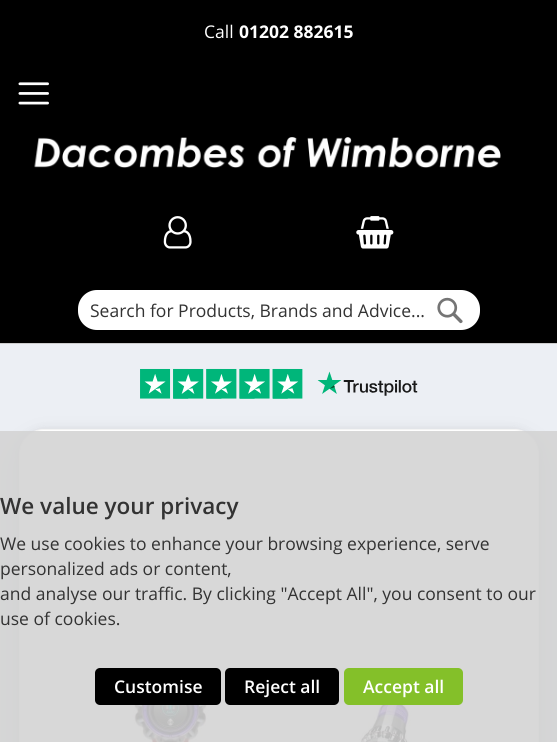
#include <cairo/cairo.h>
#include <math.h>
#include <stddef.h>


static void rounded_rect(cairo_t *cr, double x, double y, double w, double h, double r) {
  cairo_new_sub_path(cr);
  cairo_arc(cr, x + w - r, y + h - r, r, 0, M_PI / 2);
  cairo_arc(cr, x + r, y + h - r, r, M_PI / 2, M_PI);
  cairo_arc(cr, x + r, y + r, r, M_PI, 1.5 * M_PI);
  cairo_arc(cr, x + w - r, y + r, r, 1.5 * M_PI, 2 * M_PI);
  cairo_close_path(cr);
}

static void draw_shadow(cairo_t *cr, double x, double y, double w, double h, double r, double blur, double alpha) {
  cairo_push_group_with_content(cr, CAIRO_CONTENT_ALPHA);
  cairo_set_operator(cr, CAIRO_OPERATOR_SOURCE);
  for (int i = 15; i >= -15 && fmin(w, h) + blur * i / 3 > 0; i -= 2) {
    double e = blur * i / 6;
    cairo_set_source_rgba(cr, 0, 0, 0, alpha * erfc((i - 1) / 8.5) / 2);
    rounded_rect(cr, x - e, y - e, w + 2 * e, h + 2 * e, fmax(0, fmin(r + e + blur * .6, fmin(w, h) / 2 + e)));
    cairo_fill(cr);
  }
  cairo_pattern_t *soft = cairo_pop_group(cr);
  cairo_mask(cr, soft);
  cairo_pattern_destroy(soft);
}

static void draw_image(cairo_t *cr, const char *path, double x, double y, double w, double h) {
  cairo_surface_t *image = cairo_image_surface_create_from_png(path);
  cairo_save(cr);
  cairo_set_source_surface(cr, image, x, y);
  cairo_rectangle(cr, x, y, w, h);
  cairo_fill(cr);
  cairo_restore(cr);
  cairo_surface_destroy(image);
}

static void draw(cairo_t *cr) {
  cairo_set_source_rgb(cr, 236 / 255.0, 239 / 255.0, 244 / 255.0);
  cairo_paint(cr);
  cairo_set_source_rgb(cr, 0, 0, 0);
  cairo_rectangle(cr, 0, 0, 557, 343);
  cairo_fill(cr);
  cairo_set_source_rgb(cr, 204 / 255.0, 204 / 255.0, 204 / 255.0);
  cairo_rectangle(cr, 0, 343, 557, 1);
  cairo_fill(cr);
  draw_image(cr, "images/1.png", 18, 82, 31, 23);
  draw_image(cr, "images/2.png", 34, 137, 467, 31);
  draw_image(cr, "images/3.png", 163, 216, 29, 33);
  draw_image(cr, "images/4.png", 356, 216, 38, 33);
  cairo_set_source_rgb(cr, 1, 1, 1);
  rounded_rect(cr, 78, 290, 402, 40, 19);
  cairo_fill(cr);
  draw_image(cr, "images/5.png", 437, 297, 26, 27);
  cairo_set_source_rgb(cr, 0, 0, 0);
  draw_shadow(cr, 19, 444, 520, 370, 25, 15.5, 0.1);
  draw_image(cr, "images/6.png", 140, 368, 278, 31);
  draw_shadow(cr, 19, 431, 520, 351, 25, 5, 0.1);
  cairo_set_source_rgb(cr, 1, 1, 1);
  rounded_rect(cr, 19.5, 429.5, 519, 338, 24.5);
  cairo_fill_preserve(cr);
  cairo_set_source_rgb(cr, 244 / 255.0, 244 / 255.0, 244 / 255.0);
  cairo_set_line_width(cr, 1);
  cairo_stroke(cr);
  draw_image(cr, "images/7.png", 132, 671, 298, 71);
  cairo_set_source_rgba(cr, 211 / 255.0, 211 / 255.0, 211 / 255.0, 0.88);
  cairo_rectangle(cr, 0, 431, 557, 311);
  cairo_fill(cr);
  cairo_set_source_rgb(cr, 0, 0, 0);
  rounded_rect(cr, 95, 668, 126, 37, 5);
  cairo_fill(cr);
  rounded_rect(cr, 225, 668, 114, 37, 5);
  cairo_fill(cr);
  cairo_set_source_rgb(cr, 132 / 255.0, 192 / 255.0, 41 / 255.0);
  rounded_rect(cr, 344, 668, 119, 37, 5);
  cairo_fill(cr);
  cairo_select_font_face(cr, "Open Sans", CAIRO_FONT_SLANT_NORMAL, CAIRO_FONT_WEIGHT_NORMAL);
  cairo_set_font_size(cr, 17.5);
  cairo_set_source_rgb(cr, 1, 1, 1);
  cairo_move_to(cr, 204, 38);
  cairo_show_text(cr, "Call");
  cairo_select_font_face(cr, "Open Sans", CAIRO_FONT_SLANT_NORMAL, CAIRO_FONT_WEIGHT_BOLD);
  cairo_move_to(cr, 239, 38);
  cairo_show_text(cr, "01202 882615");
  cairo_select_font_face(cr, "Open Sans", CAIRO_FONT_SLANT_NORMAL, CAIRO_FONT_WEIGHT_NORMAL);
  cairo_set_source_rgb(cr, 51 / 255.0, 51 / 255.0, 51 / 255.0);
  cairo_move_to(cr, 90, 317);
  cairo_show_text(cr, "Search for Products, Brands and Advice...");
  cairo_select_font_face(cr, "Open Sans SemiBold", CAIRO_FONT_SLANT_NORMAL, CAIRO_FONT_WEIGHT_NORMAL);
  cairo_set_font_size(cr, 22.5);
  cairo_move_to(cr, 0, 514);
  cairo_show_text(cr, "We value your privacy");
  cairo_select_font_face(cr, "Open Sans", CAIRO_FONT_SLANT_NORMAL, CAIRO_FONT_WEIGHT_NORMAL);
  cairo_set_font_size(cr, 17.5);
  cairo_move_to(cr, 0, 550);
  cairo_show_text(cr, "We use cookies to enhance your browsing experience, serve");
  cairo_move_to(cr, 0, 575);
  cairo_show_text(cr, "personalized ads or content,");
  cairo_move_to(cr, 0, 600);
  cairo_show_text(cr, "and analyse our traffic. By clicking \"Accept All\", you consent to our");
  cairo_move_to(cr, 0, 625);
  cairo_show_text(cr, "use of cookies.");
  cairo_select_font_face(cr, "Open Sans SemiBold", CAIRO_FONT_SLANT_NORMAL, CAIRO_FONT_WEIGHT_NORMAL);
  cairo_set_source_rgb(cr, 1, 1, 1);
  cairo_move_to(cr, 114, 693);
  cairo_show_text(cr, "Customise");
  cairo_move_to(cr, 244, 693);
  cairo_show_text(cr, "Reject all");
  cairo_move_to(cr, 363, 693);
  cairo_show_text(cr, "Accept all");
}

int main(void) {
  cairo_surface_t *surface = cairo_image_surface_create(CAIRO_FORMAT_RGB24, 557, 742);
  cairo_t *cr = cairo_create(surface);
  cairo_font_options_t *options = cairo_font_options_create();
  cairo_font_options_set_hint_metrics(options, CAIRO_HINT_METRICS_OFF);
  cairo_font_options_set_hint_style(options, CAIRO_HINT_STYLE_NONE);
  cairo_set_font_options(cr, options);
  cairo_set_miter_limit(cr, 4);
  draw(cr);
  cairo_surface_write_to_png(surface, "out.png");
  cairo_font_options_destroy(options);
  cairo_destroy(cr);
  cairo_surface_destroy(surface);
  return 0;
}
